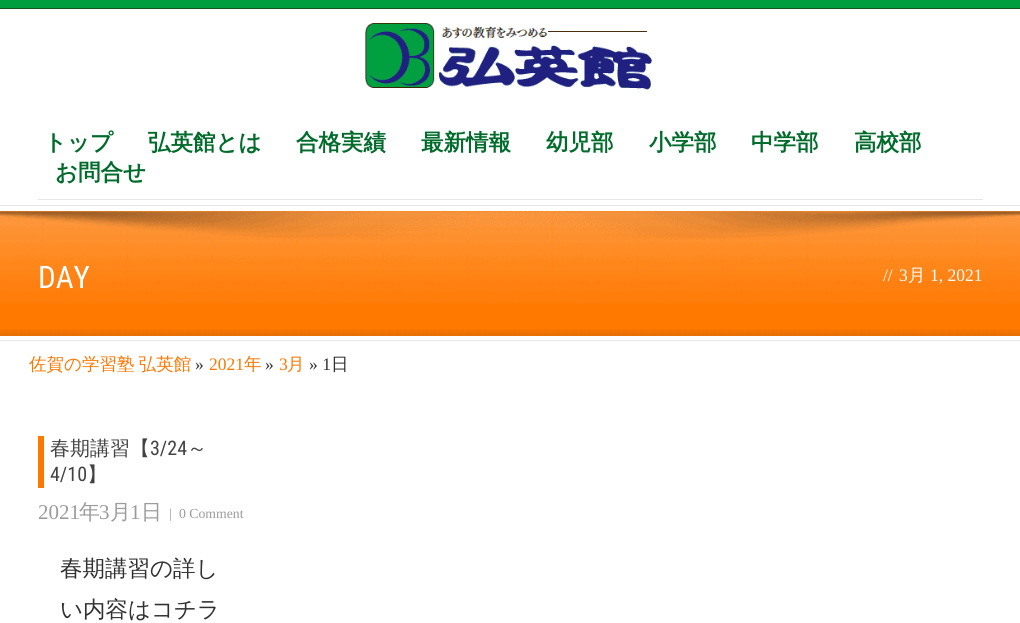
#include <cairo/cairo.h>
#include <math.h>
#include <stddef.h>


static void draw_spaced(cairo_t *cr, double x, double y, const char *s, double letter, double word) {
  cairo_move_to(cr, x, y);
  while (*s) {
    char ch[5] = {0};
    int n = 0;
    do ch[n++] = *s++; while ((*s & 0xC0) == 0x80);
    cairo_show_text(cr, ch);
    cairo_rel_move_to(cr, letter + word * (*ch == ' '), 0);
  }
}

static void draw_image(cairo_t *cr, const char *path, double x, double y, double w, double h) {
  cairo_surface_t *image = cairo_image_surface_create_from_png(path);
  cairo_save(cr);
  cairo_set_source_surface(cr, image, x, y);
  cairo_rectangle(cr, x, y, w, h);
  cairo_fill(cr);
  cairo_restore(cr);
  cairo_surface_destroy(image);
}

static void draw(cairo_t *cr) {
  cairo_set_source_rgb(cr, 1, 1, 1);
  cairo_paint(cr);
  cairo_set_source_rgb(cr, 0, 158 / 255.0, 63 / 255.0);
  cairo_rectangle(cr, 0, 0, 1020, 8);
  cairo_fill(cr);
  cairo_set_source_rgb(cr, 27 / 255.0, 82 / 255.0, 29 / 255.0);
  cairo_rectangle(cr, 0, 8, 1020, 1);
  cairo_fill(cr);
  draw_image(cr, "images/1.png", 365, 23, 287, 67);
  cairo_set_source_rgb(cr, 230 / 255.0, 230 / 255.0, 230 / 255.0);
  cairo_rectangle(cr, 38, 199, 945, 1);
  cairo_fill(cr);
  cairo_rectangle(cr, 0, 205, 1020, 1);
  cairo_fill(cr);
  cairo_rectangle(cr, 0, 340, 1020, 1);
  cairo_fill(cr);
  cairo_set_source_rgb(cr, 1, 120 / 255.0, 0);
  cairo_rectangle(cr, 0, 211, 1020, 125);
  cairo_fill(cr);
  draw_image(cr, "images/2.png", 0, 211, 1020, 93);
  draw_image(cr, "images/3.png", 0, 211, 1020, 29);
  draw_image(cr, "images/4.png", 0, 329, 1020, 7);
  cairo_rectangle(cr, 38, 436, 6, 52);
  cairo_fill(cr);
  cairo_select_font_face(cr, "WenQuanYi Zen Hei", CAIRO_FONT_SLANT_NORMAL, CAIRO_FONT_WEIGHT_BOLD);
  cairo_set_font_size(cr, 22.5);
  cairo_set_source_rgb(cr, 0, 107 / 255.0, 43 / 255.0);
  cairo_move_to(cr, 44, 150);
  cairo_show_text(cr, "トップ");
  cairo_move_to(cr, 148, 150);
  cairo_show_text(cr, "弘英館とは");
  cairo_move_to(cr, 296, 150);
  cairo_show_text(cr, "合格実績");
  cairo_move_to(cr, 421, 150);
  cairo_show_text(cr, "最新情報");
  cairo_move_to(cr, 546, 150);
  cairo_show_text(cr, "幼児部");
  cairo_move_to(cr, 649, 150);
  cairo_show_text(cr, "小学部");
  cairo_move_to(cr, 751, 150);
  cairo_show_text(cr, "中学部");
  cairo_move_to(cr, 854, 150);
  cairo_show_text(cr, "高校部");
  cairo_move_to(cr, 55, 180);
  cairo_show_text(cr, "お問合せ");
  cairo_select_font_face(cr, "Roboto Condensed", CAIRO_FONT_SLANT_NORMAL, CAIRO_FONT_WEIGHT_NORMAL);
  cairo_set_font_size(cr, 31);
  cairo_set_source_rgb(cr, 1, 1, 1);
  cairo_move_to(cr, 38, 288);
  cairo_show_text(cr, "DAY");
  cairo_select_font_face(cr, "Liberation Serif", CAIRO_FONT_SLANT_NORMAL, CAIRO_FONT_WEIGHT_NORMAL);
  cairo_set_font_size(cr, 17.5);
  cairo_move_to(cr, 883, 281);
  cairo_show_text(cr, "//");
  cairo_move_to(cr, 899, 281);
  cairo_show_text(cr, "3");
  cairo_select_font_face(cr, "WenQuanYi Zen Hei Medium", CAIRO_FONT_SLANT_NORMAL, CAIRO_FONT_WEIGHT_NORMAL);
  cairo_move_to(cr, 908, 281);
  cairo_show_text(cr, "月");
  cairo_select_font_face(cr, "Liberation Serif", CAIRO_FONT_SLANT_NORMAL, CAIRO_FONT_WEIGHT_NORMAL);
  cairo_move_to(cr, 930, 281);
  cairo_show_text(cr, "1, 2021");
  cairo_select_font_face(cr, "WenQuanYi Zen Hei Medium", CAIRO_FONT_SLANT_NORMAL, CAIRO_FONT_WEIGHT_NORMAL);
  cairo_set_source_rgb(cr, 1, 119 / 255.0, 0);
  draw_spaced(cr, 29, 370, "佐賀の学習塾 弘英館", 0, -1);
  cairo_select_font_face(cr, "Liberation Serif", CAIRO_FONT_SLANT_NORMAL, CAIRO_FONT_WEIGHT_NORMAL);
  cairo_set_source_rgb(cr, 48 / 255.0, 48 / 255.0, 48 / 255.0);
  cairo_move_to(cr, 195, 370);
  cairo_show_text(cr, "»");
  cairo_set_source_rgb(cr, 1, 119 / 255.0, 0);
  cairo_move_to(cr, 209, 370);
  cairo_show_text(cr, "2021");
  cairo_select_font_face(cr, "WenQuanYi Zen Hei Medium", CAIRO_FONT_SLANT_NORMAL, CAIRO_FONT_WEIGHT_NORMAL);
  cairo_move_to(cr, 244, 370);
  cairo_show_text(cr, "年");
  cairo_select_font_face(cr, "Liberation Serif", CAIRO_FONT_SLANT_NORMAL, CAIRO_FONT_WEIGHT_NORMAL);
  cairo_set_source_rgb(cr, 48 / 255.0, 48 / 255.0, 48 / 255.0);
  cairo_move_to(cr, 265, 370);
  cairo_show_text(cr, "»");
  cairo_set_source_rgb(cr, 1, 119 / 255.0, 0);
  cairo_move_to(cr, 279, 370);
  cairo_show_text(cr, "3");
  cairo_select_font_face(cr, "WenQuanYi Zen Hei Medium", CAIRO_FONT_SLANT_NORMAL, CAIRO_FONT_WEIGHT_NORMAL);
  cairo_move_to(cr, 287, 370);
  cairo_show_text(cr, "月");
  cairo_select_font_face(cr, "Liberation Serif", CAIRO_FONT_SLANT_NORMAL, CAIRO_FONT_WEIGHT_NORMAL);
  cairo_set_source_rgb(cr, 48 / 255.0, 48 / 255.0, 48 / 255.0);
  cairo_move_to(cr, 309, 370);
  cairo_show_text(cr, "» 1");
  cairo_select_font_face(cr, "WenQuanYi Zen Hei Medium", CAIRO_FONT_SLANT_NORMAL, CAIRO_FONT_WEIGHT_NORMAL);
  cairo_move_to(cr, 331, 370);
  cairo_show_text(cr, "日");
  cairo_set_font_size(cr, 20);
  cairo_set_source_rgb(cr, 66 / 255.0, 66 / 255.0, 66 / 255.0);
  cairo_move_to(cr, 50, 455);
  cairo_show_text(cr, "春期講習【");
  cairo_select_font_face(cr, "Roboto Condensed", CAIRO_FONT_SLANT_NORMAL, CAIRO_FONT_WEIGHT_NORMAL);
  cairo_move_to(cr, 150, 455);
  cairo_show_text(cr, "3/24");
  cairo_select_font_face(cr, "WenQuanYi Zen Hei Medium", CAIRO_FONT_SLANT_NORMAL, CAIRO_FONT_WEIGHT_NORMAL);
  cairo_move_to(cr, 187, 455);
  cairo_show_text(cr, "～");
  cairo_select_font_face(cr, "Roboto Condensed", CAIRO_FONT_SLANT_NORMAL, CAIRO_FONT_WEIGHT_NORMAL);
  cairo_move_to(cr, 50, 481);
  cairo_show_text(cr, "4/10");
  cairo_select_font_face(cr, "WenQuanYi Zen Hei Medium", CAIRO_FONT_SLANT_NORMAL, CAIRO_FONT_WEIGHT_NORMAL);
  cairo_move_to(cr, 87, 481);
  cairo_show_text(cr, "】");
  cairo_select_font_face(cr, "Liberation Serif", CAIRO_FONT_SLANT_NORMAL, CAIRO_FONT_WEIGHT_NORMAL);
  cairo_set_font_size(cr, 21);
  cairo_set_source_rgb(cr, 155 / 255.0, 155 / 255.0, 155 / 255.0);
  cairo_move_to(cr, 38, 519);
  cairo_show_text(cr, "2021");
  cairo_select_font_face(cr, "WenQuanYi Zen Hei Medium", CAIRO_FONT_SLANT_NORMAL, CAIRO_FONT_WEIGHT_NORMAL);
  cairo_move_to(cr, 79, 519);
  cairo_show_text(cr, "年");
  cairo_select_font_face(cr, "Liberation Serif", CAIRO_FONT_SLANT_NORMAL, CAIRO_FONT_WEIGHT_NORMAL);
  cairo_move_to(cr, 99, 519);
  cairo_show_text(cr, "3");
  cairo_select_font_face(cr, "WenQuanYi Zen Hei Medium", CAIRO_FONT_SLANT_NORMAL, CAIRO_FONT_WEIGHT_NORMAL);
  cairo_move_to(cr, 110, 519);
  cairo_show_text(cr, "月");
  cairo_select_font_face(cr, "Liberation Serif", CAIRO_FONT_SLANT_NORMAL, CAIRO_FONT_WEIGHT_NORMAL);
  cairo_move_to(cr, 130, 519);
  cairo_show_text(cr, "1");
  cairo_select_font_face(cr, "WenQuanYi Zen Hei Medium", CAIRO_FONT_SLANT_NORMAL, CAIRO_FONT_WEIGHT_NORMAL);
  cairo_move_to(cr, 141, 519);
  cairo_show_text(cr, "日");
  cairo_select_font_face(cr, "Liberation Serif", CAIRO_FONT_SLANT_NORMAL, CAIRO_FONT_WEIGHT_NORMAL);
  cairo_set_font_size(cr, 13.75);
  cairo_move_to(cr, 169, 518);
  cairo_show_text(cr, "|");
  cairo_move_to(cr, 179, 518);
  cairo_show_text(cr, "0 Comment");
  cairo_select_font_face(cr, "WenQuanYi Zen Hei Medium", CAIRO_FONT_SLANT_NORMAL, CAIRO_FONT_WEIGHT_NORMAL);
  cairo_set_font_size(cr, 22.5);
  cairo_set_source_rgb(cr, 48 / 255.0, 48 / 255.0, 48 / 255.0);
  cairo_move_to(cr, 60, 576);
  cairo_show_text(cr, "春期講習の詳し");
  cairo_move_to(cr, 60, 617);
  cairo_show_text(cr, "い内容はコチラ");
}

int main(void) {
  cairo_surface_t *surface = cairo_image_surface_create(CAIRO_FORMAT_RGB24, 1020, 623);
  cairo_t *cr = cairo_create(surface);
  cairo_font_options_t *options = cairo_font_options_create();
  cairo_font_options_set_hint_metrics(options, CAIRO_HINT_METRICS_OFF);
  cairo_font_options_set_hint_style(options, CAIRO_HINT_STYLE_NONE);
  cairo_set_font_options(cr, options);
  cairo_set_miter_limit(cr, 4);
  draw(cr);
  cairo_surface_write_to_png(surface, "out.png");
  cairo_font_options_destroy(options);
  cairo_destroy(cr);
  cairo_surface_destroy(surface);
  return 0;
}
